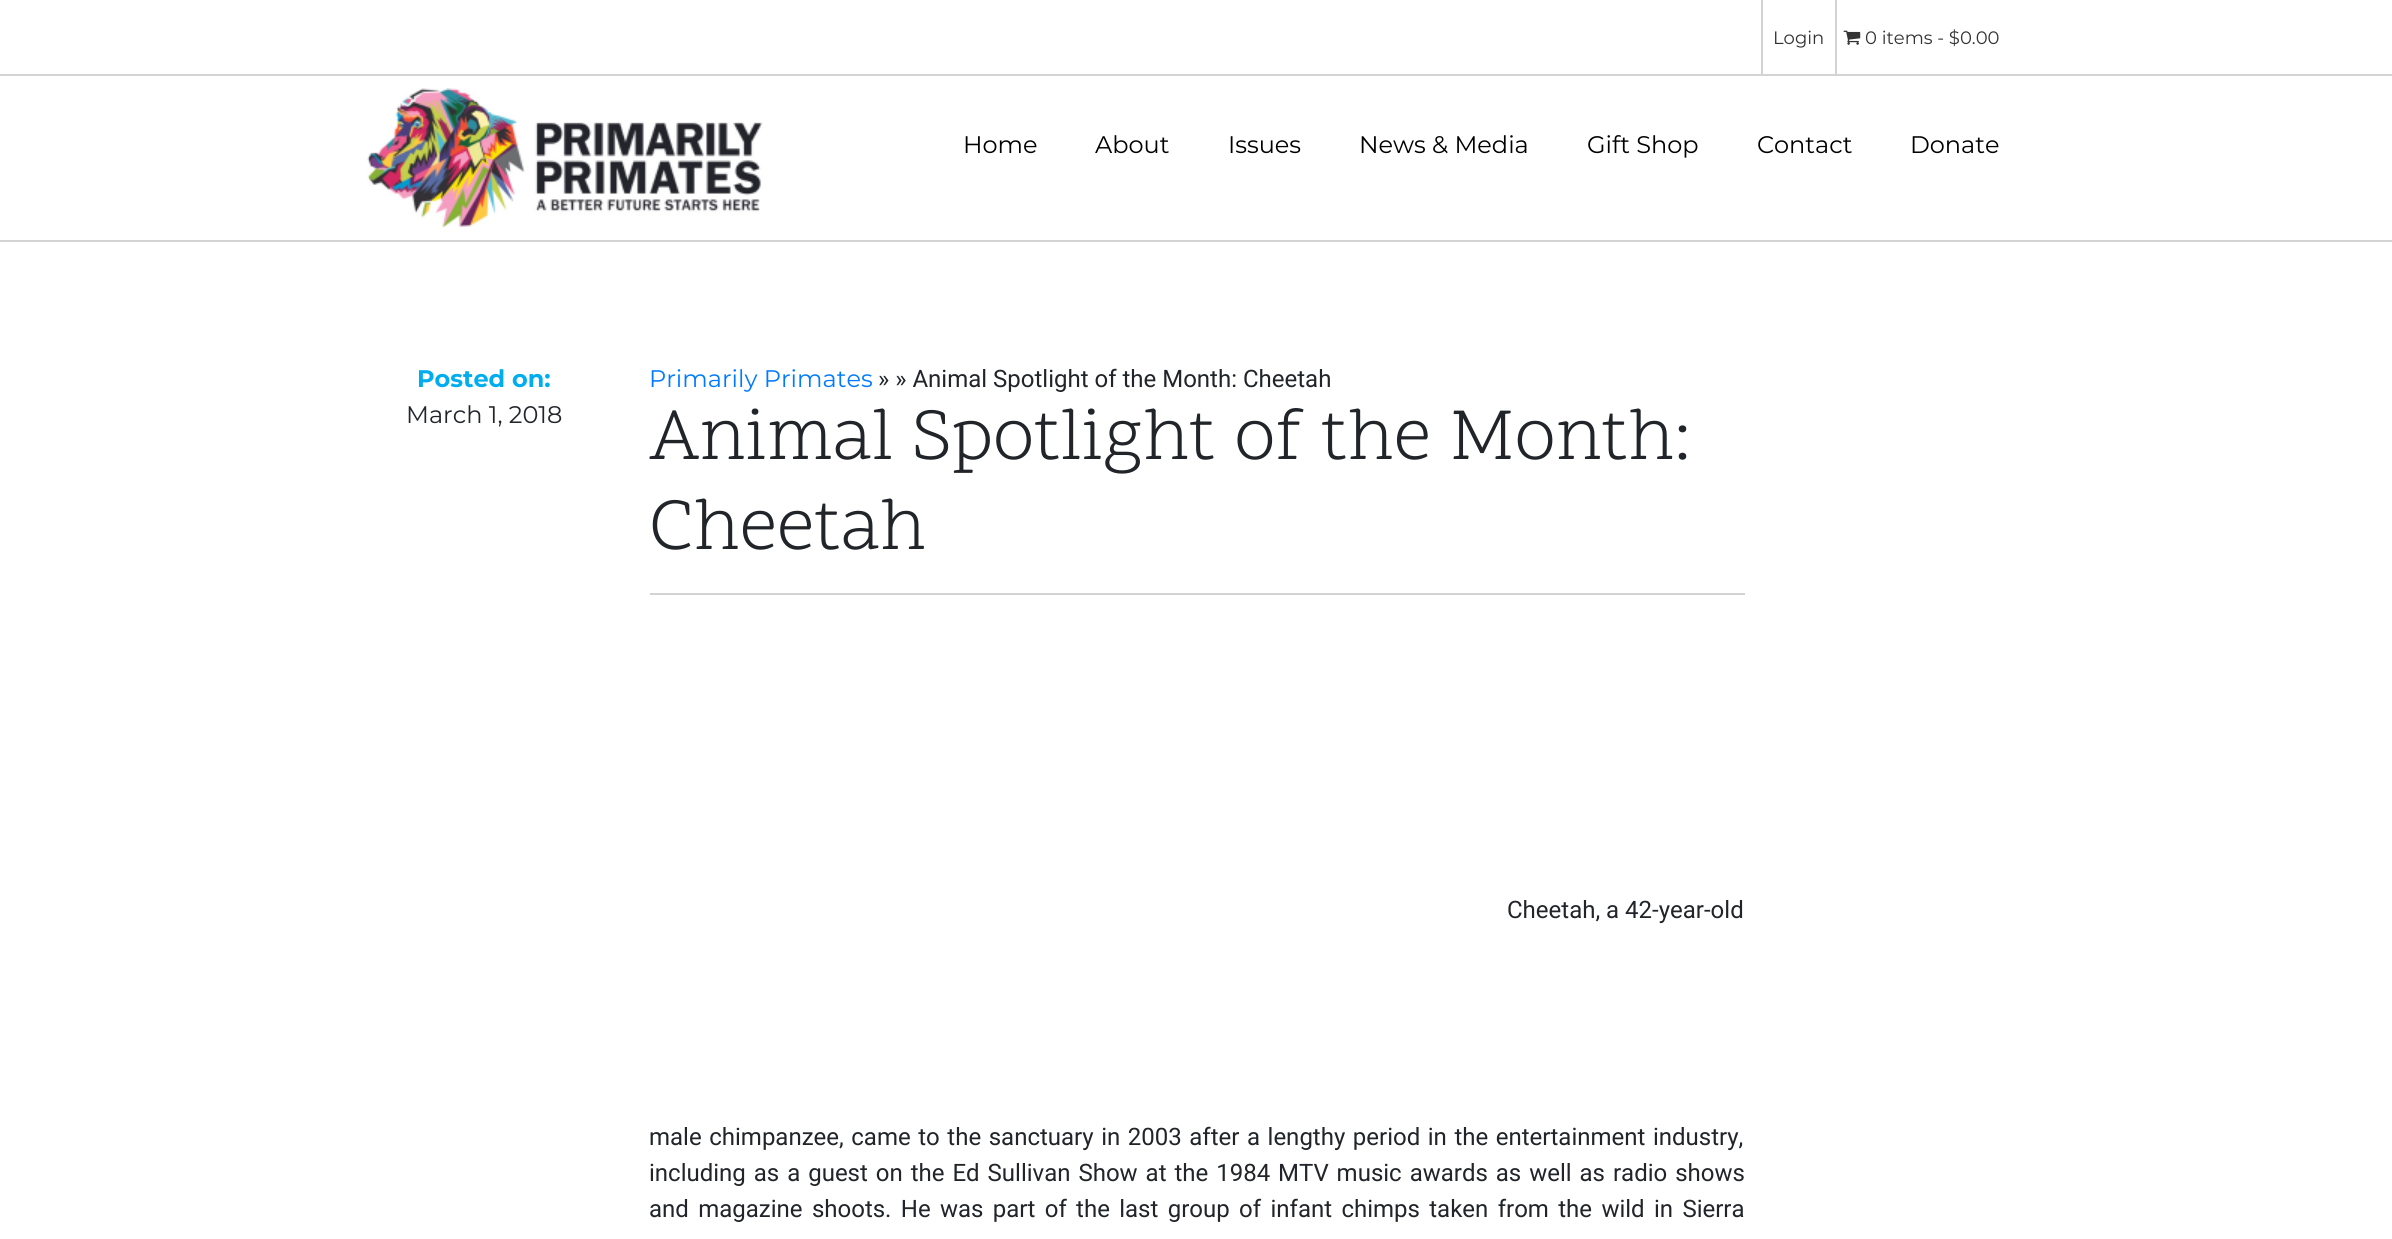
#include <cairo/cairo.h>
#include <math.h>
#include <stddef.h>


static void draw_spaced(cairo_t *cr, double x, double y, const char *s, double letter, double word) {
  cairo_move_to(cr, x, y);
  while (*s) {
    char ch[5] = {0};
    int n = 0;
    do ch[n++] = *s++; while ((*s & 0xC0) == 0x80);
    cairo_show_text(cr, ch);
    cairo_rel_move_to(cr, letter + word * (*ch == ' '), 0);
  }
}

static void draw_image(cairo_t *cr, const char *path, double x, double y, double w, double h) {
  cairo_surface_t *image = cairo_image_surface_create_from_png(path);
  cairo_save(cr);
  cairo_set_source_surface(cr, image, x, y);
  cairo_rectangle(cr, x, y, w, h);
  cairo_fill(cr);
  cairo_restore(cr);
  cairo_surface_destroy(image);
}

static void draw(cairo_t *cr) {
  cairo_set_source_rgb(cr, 1, 1, 1);
  cairo_paint(cr);
  cairo_set_source_rgb(cr, 211 / 255.0, 211 / 255.0, 211 / 255.0);
  cairo_rectangle(cr, 0, 240, 2392, 2);
  cairo_fill(cr);
  cairo_rectangle(cr, 0, 74, 2392, 2);
  cairo_fill(cr);
  cairo_rectangle(cr, 1761, 0, 2, 74);
  cairo_fill(cr);
  cairo_rectangle(cr, 1835, 0, 2, 74);
  cairo_fill(cr);
  draw_image(cr, "images/1.png", 1843, 30, 18, 15);
  draw_image(cr, "images/2.png", 367, 88, 396, 140);
  cairo_rectangle(cr, 650, 593, 1095, 2);
  cairo_fill(cr);
  cairo_select_font_face(cr, "Montserrat", CAIRO_FONT_SLANT_NORMAL, CAIRO_FONT_WEIGHT_NORMAL);
  cairo_set_font_size(cr, 18);
  cairo_set_source_rgb(cr, 51 / 255.0, 51 / 255.0, 51 / 255.0);
  cairo_move_to(cr, 1773, 44);
  cairo_show_text(cr, "Login");
  cairo_move_to(cr, 1865, 44);
  cairo_show_text(cr, "0 items - $0.00");
  cairo_set_font_size(cr, 24);
  cairo_set_source_rgb(cr, 0, 0, 0);
  cairo_move_to(cr, 963, 153);
  cairo_show_text(cr, "Home");
  cairo_move_to(cr, 1095, 153);
  cairo_show_text(cr, "About");
  cairo_move_to(cr, 1228, 153);
  cairo_show_text(cr, "Issues");
  cairo_move_to(cr, 1359, 153);
  cairo_show_text(cr, "News & Media");
  cairo_move_to(cr, 1587, 153);
  cairo_show_text(cr, "Gift Shop");
  cairo_move_to(cr, 1757, 153);
  cairo_show_text(cr, "Contact");
  cairo_move_to(cr, 1910, 153);
  cairo_show_text(cr, "Donate");
  cairo_select_font_face(cr, "Montserrat", CAIRO_FONT_SLANT_NORMAL, CAIRO_FONT_WEIGHT_BOLD);
  cairo_set_source_rgb(cr, 0, 173 / 255.0, 239 / 255.0);
  cairo_move_to(cr, 417, 387);
  cairo_show_text(cr, "Posted on:");
  cairo_select_font_face(cr, "Montserrat", CAIRO_FONT_SLANT_NORMAL, CAIRO_FONT_WEIGHT_NORMAL);
  cairo_set_source_rgb(cr, 33 / 255.0, 37 / 255.0, 41 / 255.0);
  cairo_move_to(cr, 406, 423);
  cairo_show_text(cr, "March 1, 2018");
  cairo_set_source_rgb(cr, 0, 123 / 255.0, 1);
  cairo_move_to(cr, 649, 387);
  cairo_show_text(cr, "Primarily Primates");
  cairo_select_font_face(cr, "Roboto", CAIRO_FONT_SLANT_NORMAL, CAIRO_FONT_WEIGHT_NORMAL);
  cairo_set_source_rgb(cr, 33 / 255.0, 37 / 255.0, 41 / 255.0);
  cairo_move_to(cr, 878, 387);
  cairo_show_text(cr, "» » Animal Spotlight of the Month: Cheetah");
  cairo_select_font_face(cr, "Scope One", CAIRO_FONT_SLANT_NORMAL, CAIRO_FONT_WEIGHT_NORMAL);
  cairo_set_font_size(cr, 75);
  cairo_move_to(cr, 649, 459);
  cairo_show_text(cr, "Animal Spotlight of the Month:");
  cairo_move_to(cr, 649, 549);
  cairo_show_text(cr, "Cheetah");
  cairo_select_font_face(cr, "Roboto", CAIRO_FONT_SLANT_NORMAL, CAIRO_FONT_WEIGHT_NORMAL);
  cairo_set_font_size(cr, 24);
  cairo_move_to(cr, 1507, 918);
  cairo_show_text(cr, "Cheetah, a 42-year-old");
  draw_spaced(cr, 649, 1145, "male chimpanzee, came to the sanctuary in 2003 after a lengthy period in the entertainment industry,", 0, 1.6);
  draw_spaced(cr, 649, 1181, "including as a guest on the Ed Sullivan Show at the 1984 MTV music awards as well as radio shows", 0, 2);
  draw_spaced(cr, 649, 1217, "and magazine shoots. He was part of the last group of infant chimps taken from the wild in Sierra", 0, 3.4);
}

int main(void) {
  cairo_surface_t *surface = cairo_image_surface_create(CAIRO_FORMAT_RGB24, 2392, 1239);
  cairo_t *cr = cairo_create(surface);
  cairo_font_options_t *options = cairo_font_options_create();
  cairo_font_options_set_hint_metrics(options, CAIRO_HINT_METRICS_OFF);
  cairo_font_options_set_hint_style(options, CAIRO_HINT_STYLE_NONE);
  cairo_set_font_options(cr, options);
  cairo_set_miter_limit(cr, 4);
  draw(cr);
  cairo_surface_write_to_png(surface, "out.png");
  cairo_font_options_destroy(options);
  cairo_destroy(cr);
  cairo_surface_destroy(surface);
  return 0;
}
